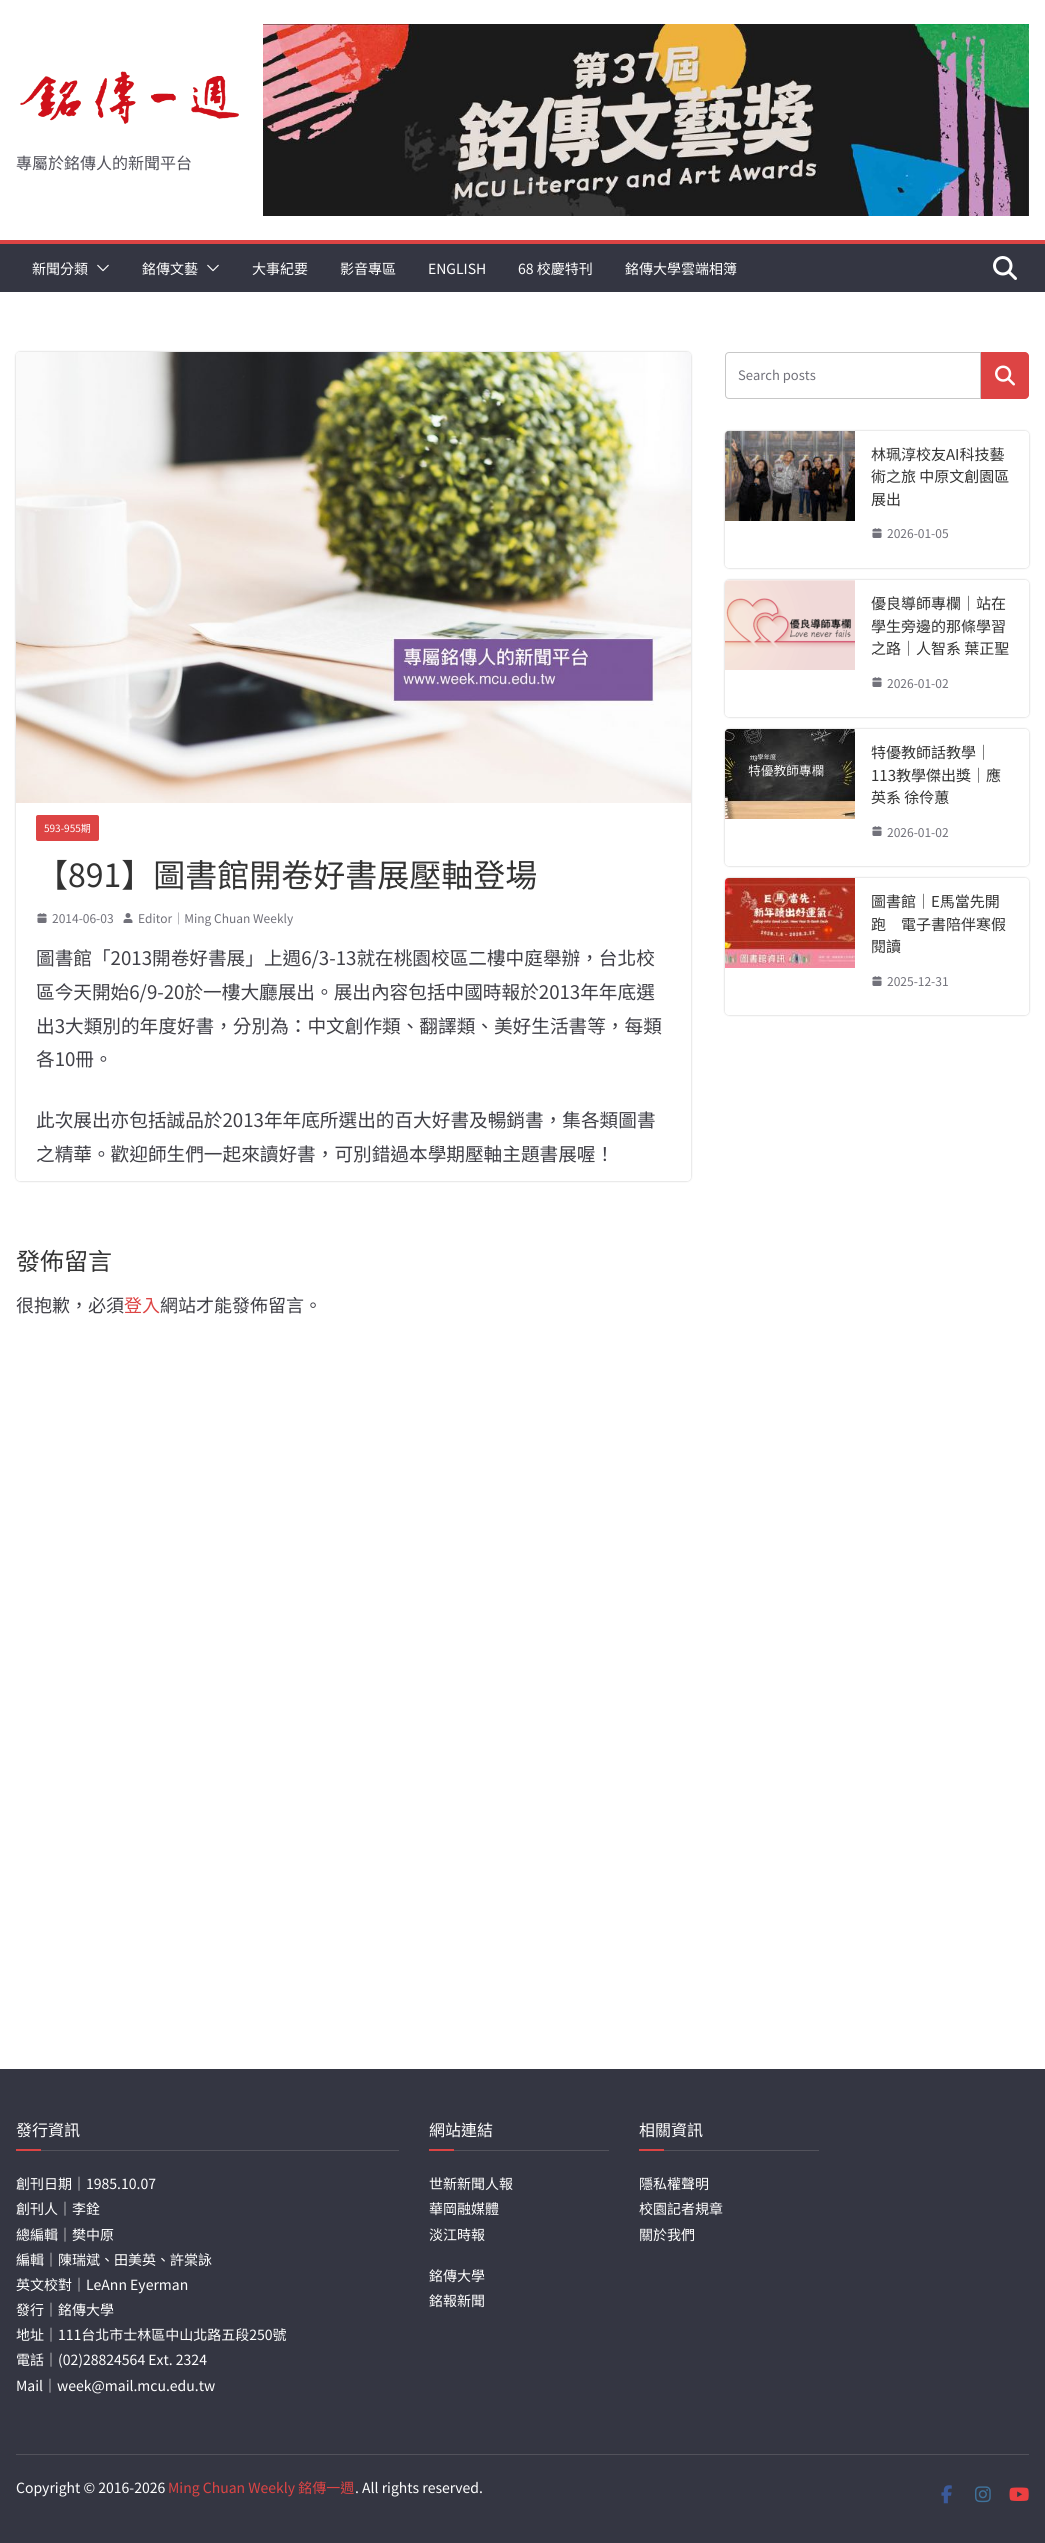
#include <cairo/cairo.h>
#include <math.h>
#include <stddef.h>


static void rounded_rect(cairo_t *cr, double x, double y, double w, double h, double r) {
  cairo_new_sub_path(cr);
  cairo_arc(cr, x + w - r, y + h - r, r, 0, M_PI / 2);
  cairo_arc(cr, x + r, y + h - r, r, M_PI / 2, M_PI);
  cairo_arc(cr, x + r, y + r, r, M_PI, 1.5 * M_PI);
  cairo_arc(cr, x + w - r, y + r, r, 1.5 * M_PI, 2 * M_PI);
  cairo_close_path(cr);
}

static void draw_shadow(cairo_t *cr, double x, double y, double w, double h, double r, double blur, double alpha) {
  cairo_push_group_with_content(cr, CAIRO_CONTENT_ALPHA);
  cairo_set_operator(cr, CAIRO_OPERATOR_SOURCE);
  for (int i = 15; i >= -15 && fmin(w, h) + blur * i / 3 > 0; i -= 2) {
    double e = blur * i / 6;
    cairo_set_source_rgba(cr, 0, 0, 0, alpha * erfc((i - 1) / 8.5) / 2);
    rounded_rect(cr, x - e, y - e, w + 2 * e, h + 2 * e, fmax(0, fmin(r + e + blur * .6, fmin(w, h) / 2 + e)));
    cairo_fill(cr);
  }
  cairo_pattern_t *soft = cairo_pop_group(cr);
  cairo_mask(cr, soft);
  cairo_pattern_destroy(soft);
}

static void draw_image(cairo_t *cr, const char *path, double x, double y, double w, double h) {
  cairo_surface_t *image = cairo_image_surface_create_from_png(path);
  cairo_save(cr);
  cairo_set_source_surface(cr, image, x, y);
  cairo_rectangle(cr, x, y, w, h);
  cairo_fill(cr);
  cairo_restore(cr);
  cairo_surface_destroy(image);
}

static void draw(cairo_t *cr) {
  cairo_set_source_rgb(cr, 1, 1, 1);
  cairo_paint(cr);
  draw_image(cr, "images/1.png", 20, 71, 219, 53);
  draw_image(cr, "images/2.png", 263, 24, 766, 192);
  cairo_set_source_rgb(cr, 52 / 255.0, 54 / 255.0, 66 / 255.0);
  cairo_rectangle(cr, 0, 244, 1045, 48);
  cairo_fill(cr);
  cairo_set_source_rgb(cr, 221 / 255.0, 68 / 255.0, 68 / 255.0);
  cairo_rectangle(cr, 0, 240, 1045, 4);
  cairo_fill(cr);
  draw_image(cr, "images/3.png", 97, 264, 12, 8);
  draw_image(cr, "images/3.png", 207, 264, 12, 8);
  draw_image(cr, "images/4.png", 993, 256, 24, 24);
  cairo_new_path(cr);
  cairo_move_to(cr, 729, 352.5);
  cairo_line_to(cr, 980.5, 352.5);
  cairo_line_to(cr, 980.5, 398.5);
  cairo_line_to(cr, 729, 398.5);
  cairo_curve_to(cr, 727, 398.5, 725.5, 397, 725.5, 395);
  cairo_line_to(cr, 725.5, 356);
  cairo_curve_to(cr, 725.5, 354, 727, 352.5, 729, 352.5);
  cairo_close_path(cr);
  cairo_set_source_rgb(cr, 199 / 255.0, 199 / 255.0, 199 / 255.0);
  cairo_set_line_width(cr, 1);
  cairo_stroke(cr);
  cairo_set_source_rgb(cr, 221 / 255.0, 68 / 255.0, 68 / 255.0);
  cairo_new_path(cr);
  cairo_move_to(cr, 981, 352);
  cairo_line_to(cr, 1025, 352);
  cairo_curve_to(cr, 1027, 352, 1029, 354, 1029, 356);
  cairo_line_to(cr, 1029, 395);
  cairo_curve_to(cr, 1029, 397, 1027, 399, 1025, 399);
  cairo_line_to(cr, 981, 399);
  cairo_close_path(cr);
  cairo_fill(cr);
  draw_image(cr, "images/5.png", 995, 365, 20, 21);
  cairo_save(cr);
  cairo_set_fill_rule(cr, CAIRO_FILL_RULE_EVEN_ODD);
  cairo_new_path(cr);
  cairo_move_to(cr, 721, 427);
  cairo_line_to(cr, 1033, 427);
  cairo_line_to(cr, 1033, 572);
  cairo_line_to(cr, 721, 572);
  cairo_close_path(cr);
  cairo_move_to(cr, 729, 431);
  cairo_line_to(cr, 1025, 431);
  cairo_curve_to(cr, 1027, 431, 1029, 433, 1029, 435);
  cairo_line_to(cr, 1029, 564);
  cairo_curve_to(cr, 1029, 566, 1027, 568, 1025, 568);
  cairo_line_to(cr, 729, 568);
  cairo_curve_to(cr, 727, 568, 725, 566, 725, 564);
  cairo_line_to(cr, 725, 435);
  cairo_curve_to(cr, 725, 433, 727, 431, 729, 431);
  cairo_close_path(cr);
  cairo_clip(cr);
  cairo_set_source_rgb(cr, 0, 0, 0);
  draw_shadow(cr, 725, 431, 304, 137, 4, 1, 0.24);
  cairo_restore(cr);
  draw_image(cr, "images/6.png", 725, 431, 130, 90);
  draw_image(cr, "images/7.png", 872, 528, 10, 10);
  cairo_save(cr);
  cairo_set_fill_rule(cr, CAIRO_FILL_RULE_EVEN_ODD);
  cairo_new_path(cr);
  cairo_move_to(cr, 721, 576);
  cairo_line_to(cr, 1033, 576);
  cairo_line_to(cr, 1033, 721);
  cairo_line_to(cr, 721, 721);
  cairo_close_path(cr);
  cairo_move_to(cr, 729, 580);
  cairo_line_to(cr, 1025, 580);
  cairo_curve_to(cr, 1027, 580, 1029, 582, 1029, 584);
  cairo_line_to(cr, 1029, 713);
  cairo_curve_to(cr, 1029, 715, 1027, 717, 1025, 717);
  cairo_line_to(cr, 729, 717);
  cairo_curve_to(cr, 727, 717, 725, 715, 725, 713);
  cairo_line_to(cr, 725, 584);
  cairo_curve_to(cr, 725, 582, 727, 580, 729, 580);
  cairo_close_path(cr);
  cairo_clip(cr);
  cairo_set_source_rgb(cr, 0, 0, 0);
  draw_shadow(cr, 725, 580, 304, 137, 4, 1, 0.24);
  cairo_restore(cr);
  draw_image(cr, "images/8.png", 725, 580, 130, 90);
  draw_image(cr, "images/7.png", 872, 677, 10, 10);
  cairo_save(cr);
  cairo_set_fill_rule(cr, CAIRO_FILL_RULE_EVEN_ODD);
  cairo_new_path(cr);
  cairo_move_to(cr, 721, 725);
  cairo_line_to(cr, 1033, 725);
  cairo_line_to(cr, 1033, 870);
  cairo_line_to(cr, 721, 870);
  cairo_close_path(cr);
  cairo_move_to(cr, 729, 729);
  cairo_line_to(cr, 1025, 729);
  cairo_curve_to(cr, 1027, 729, 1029, 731, 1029, 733);
  cairo_line_to(cr, 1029, 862);
  cairo_curve_to(cr, 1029, 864, 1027, 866, 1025, 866);
  cairo_line_to(cr, 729, 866);
  cairo_curve_to(cr, 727, 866, 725, 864, 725, 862);
  cairo_line_to(cr, 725, 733);
  cairo_curve_to(cr, 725, 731, 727, 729, 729, 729);
  cairo_close_path(cr);
  cairo_clip(cr);
  cairo_set_source_rgb(cr, 0, 0, 0);
  draw_shadow(cr, 725, 729, 304, 137, 4, 1, 0.24);
  cairo_restore(cr);
  draw_image(cr, "images/9.png", 725, 729, 130, 90);
  draw_image(cr, "images/7.png", 872, 826, 10, 10);
  cairo_save(cr);
  cairo_set_fill_rule(cr, CAIRO_FILL_RULE_EVEN_ODD);
  cairo_new_path(cr);
  cairo_move_to(cr, 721, 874);
  cairo_line_to(cr, 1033, 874);
  cairo_line_to(cr, 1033, 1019);
  cairo_line_to(cr, 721, 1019);
  cairo_close_path(cr);
  cairo_move_to(cr, 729, 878);
  cairo_line_to(cr, 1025, 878);
  cairo_curve_to(cr, 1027, 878, 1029, 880, 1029, 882);
  cairo_line_to(cr, 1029, 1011);
  cairo_curve_to(cr, 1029, 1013, 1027, 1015, 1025, 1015);
  cairo_line_to(cr, 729, 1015);
  cairo_curve_to(cr, 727, 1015, 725, 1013, 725, 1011);
  cairo_line_to(cr, 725, 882);
  cairo_curve_to(cr, 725, 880, 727, 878, 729, 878);
  cairo_close_path(cr);
  cairo_clip(cr);
  cairo_set_source_rgb(cr, 0, 0, 0);
  draw_shadow(cr, 725, 878, 304, 137, 4, 1, 0.24);
  cairo_restore(cr);
  draw_image(cr, "images/10.png", 725, 878, 130, 90);
  draw_image(cr, "images/7.png", 872, 976, 10, 10);
  cairo_save(cr);
  cairo_set_fill_rule(cr, CAIRO_FILL_RULE_EVEN_ODD);
  cairo_new_path(cr);
  cairo_move_to(cr, 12, 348);
  cairo_line_to(cr, 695, 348);
  cairo_line_to(cr, 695, 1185);
  cairo_line_to(cr, 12, 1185);
  cairo_close_path(cr);
  cairo_move_to(cr, 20, 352);
  cairo_line_to(cr, 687, 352);
  cairo_curve_to(cr, 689, 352, 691, 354, 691, 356);
  cairo_line_to(cr, 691, 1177);
  cairo_curve_to(cr, 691, 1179, 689, 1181, 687, 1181);
  cairo_line_to(cr, 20, 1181);
  cairo_curve_to(cr, 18, 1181, 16, 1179, 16, 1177);
  cairo_line_to(cr, 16, 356);
  cairo_curve_to(cr, 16, 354, 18, 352, 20, 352);
  cairo_close_path(cr);
  cairo_clip(cr);
  cairo_set_source_rgb(cr, 0, 0, 0);
  draw_shadow(cr, 16, 352, 675, 829, 4, 1, 0.24);
  cairo_restore(cr);
  draw_image(cr, "images/11.png", 16, 352, 675, 451);
  rounded_rect(cr, 36, 815, 63, 26, 2);
  cairo_fill(cr);
  draw_image(cr, "images/7.png", 37, 913, 10, 10);
  draw_image(cr, "images/12.png", 123, 913, 10, 10);
  cairo_set_source_rgb(cr, 52 / 255.0, 54 / 255.0, 66 / 255.0);
  cairo_rectangle(cr, 0, 2069, 1045, 474);
  cairo_fill(cr);
  cairo_set_source_rgb(cr, 82 / 255.0, 82 / 255.0, 91 / 255.0);
  cairo_rectangle(cr, 41, 2150, 358, 1);
  cairo_fill(cr);
  cairo_set_source_rgb(cr, 221 / 255.0, 68 / 255.0, 68 / 255.0);
  cairo_rectangle(cr, 16, 2149, 25, 2);
  cairo_fill(cr);
  cairo_set_source_rgb(cr, 82 / 255.0, 82 / 255.0, 91 / 255.0);
  cairo_rectangle(cr, 454, 2150, 155, 1);
  cairo_fill(cr);
  cairo_set_source_rgb(cr, 221 / 255.0, 68 / 255.0, 68 / 255.0);
  cairo_rectangle(cr, 429, 2149, 25, 2);
  cairo_fill(cr);
  cairo_set_source_rgb(cr, 82 / 255.0, 82 / 255.0, 91 / 255.0);
  cairo_rectangle(cr, 664, 2150, 155, 1);
  cairo_fill(cr);
  cairo_set_source_rgb(cr, 221 / 255.0, 68 / 255.0, 68 / 255.0);
  cairo_rectangle(cr, 639, 2149, 25, 2);
  cairo_fill(cr);
  cairo_set_source_rgb(cr, 82 / 255.0, 82 / 255.0, 91 / 255.0);
  cairo_rectangle(cr, 16, 2454, 1013, 1);
  cairo_fill(cr);
  draw_image(cr, "images/13.png", 941, 2485, 11, 19);
  draw_image(cr, "images/14.png", 975, 2486, 16, 17);
  draw_image(cr, "images/15.png", 1009, 2487, 20, 14);
  cairo_select_font_face(cr, "Noto Sans TC", CAIRO_FONT_SLANT_NORMAL, CAIRO_FONT_WEIGHT_NORMAL);
  cairo_set_font_size(cr, 16);
  cairo_move_to(cr, 16, 169);
  cairo_show_text(cr, "專屬於銘傳人的新聞平台");
  cairo_set_font_size(cr, 14);
  cairo_set_source_rgb(cr, 1, 1, 1);
  cairo_move_to(cr, 32, 274);
  cairo_show_text(cr, "新聞分類");
  cairo_move_to(cr, 142, 274);
  cairo_show_text(cr, "銘傳文藝");
  cairo_move_to(cr, 252, 274);
  cairo_show_text(cr, "大事紀要");
  cairo_move_to(cr, 340, 274);
  cairo_show_text(cr, "影音專區");
  cairo_move_to(cr, 428, 274);
  cairo_show_text(cr, "ENGLISH");
  cairo_move_to(cr, 518, 274);
  cairo_show_text(cr, "68 校慶特刊");
  cairo_move_to(cr, 625, 274);
  cairo_show_text(cr, "銘傳大學雲端相簿");
  cairo_set_font_size(cr, 13);
  cairo_set_source_rgb(cr, 113 / 255.0, 113 / 255.0, 122 / 255.0);
  cairo_move_to(cr, 738, 380);
  cairo_show_text(cr, "Search posts");
  cairo_set_font_size(cr, 15);
  cairo_set_source_rgb(cr, 51 / 255.0, 51 / 255.0, 51 / 255.0);
  cairo_move_to(cr, 871, 460);
  cairo_show_text(cr, "林珮淳校友AI科技藝");
  cairo_move_to(cr, 871, 482);
  cairo_show_text(cr, "術之旅 中原文創園區");
  cairo_move_to(cr, 871, 505);
  cairo_show_text(cr, "展出");
  cairo_set_font_size(cr, 12);
  cairo_set_source_rgb(cr, 113 / 255.0, 113 / 255.0, 122 / 255.0);
  cairo_move_to(cr, 887, 538);
  cairo_show_text(cr, "2026-01-05");
  cairo_set_font_size(cr, 15);
  cairo_set_source_rgb(cr, 51 / 255.0, 51 / 255.0, 51 / 255.0);
  cairo_move_to(cr, 871, 609);
  cairo_show_text(cr, "優良導師專欄｜站在");
  cairo_move_to(cr, 871, 632);
  cairo_show_text(cr, "學生旁邊的那條學習");
  cairo_move_to(cr, 871, 654);
  cairo_show_text(cr, "之路｜人智系 葉正聖");
  cairo_set_font_size(cr, 12);
  cairo_set_source_rgb(cr, 113 / 255.0, 113 / 255.0, 122 / 255.0);
  cairo_move_to(cr, 887, 688);
  cairo_show_text(cr, "2026-01-02");
  cairo_set_font_size(cr, 15);
  cairo_set_source_rgb(cr, 51 / 255.0, 51 / 255.0, 51 / 255.0);
  cairo_move_to(cr, 871, 758);
  cairo_show_text(cr, "特優教師話教學｜");
  cairo_move_to(cr, 871, 781);
  cairo_show_text(cr, "113教學傑出獎｜應");
  cairo_move_to(cr, 871, 803);
  cairo_show_text(cr, "英系 徐伶蕙");
  cairo_set_font_size(cr, 12);
  cairo_set_source_rgb(cr, 113 / 255.0, 113 / 255.0, 122 / 255.0);
  cairo_move_to(cr, 887, 837);
  cairo_show_text(cr, "2026-01-02");
  cairo_set_font_size(cr, 15);
  cairo_set_source_rgb(cr, 51 / 255.0, 51 / 255.0, 51 / 255.0);
  cairo_move_to(cr, 871, 907);
  cairo_show_text(cr, "圖書館｜E馬當先開");
  cairo_move_to(cr, 871, 930);
  cairo_show_text(cr, "跑　電子書陪伴寒假");
  cairo_move_to(cr, 871, 952);
  cairo_show_text(cr, "閱讀");
  cairo_set_font_size(cr, 12);
  cairo_set_source_rgb(cr, 113 / 255.0, 113 / 255.0, 122 / 255.0);
  cairo_move_to(cr, 887, 986);
  cairo_show_text(cr, "2025-12-31");
  cairo_set_font_size(cr, 10);
  cairo_set_source_rgb(cr, 1, 1, 1);
  cairo_move_to(cr, 44, 832);
  cairo_show_text(cr, "593-955期");
  cairo_set_font_size(cr, 32);
  cairo_set_source_rgb(cr, 51 / 255.0, 51 / 255.0, 51 / 255.0);
  cairo_move_to(cr, 36, 887);
  cairo_show_text(cr, "【891】圖書館開卷好書展壓軸登場");
  cairo_set_font_size(cr, 12);
  cairo_set_source_rgb(cr, 113 / 255.0, 113 / 255.0, 122 / 255.0);
  cairo_move_to(cr, 52, 923);
  cairo_show_text(cr, "2014-06-03");
  cairo_move_to(cr, 138, 923);
  cairo_show_text(cr, "Editor｜Ming Chuan Weekly");
  cairo_set_font_size(cr, 18.65);
  cairo_set_source_rgb(cr, 63 / 255.0, 63 / 255.0, 70 / 255.0);
  cairo_move_to(cr, 36, 965);
  cairo_show_text(cr, "圖書館「2013開卷好書展」上週6/3-13就在桃園校區二樓中庭舉辦，台北校");
  cairo_move_to(cr, 36, 999);
  cairo_show_text(cr, "區今天開始6/9-20於一樓大廳展出。展出內容包括中國時報於2013年年底選");
  cairo_move_to(cr, 36, 1033);
  cairo_show_text(cr, "出3大類別的年度好書，分別為：中文創作類、翻譯類、美好生活書等，每類");
  cairo_move_to(cr, 36, 1066);
  cairo_show_text(cr, "各10冊。");
  cairo_move_to(cr, 36, 1127);
  cairo_show_text(cr, "此次展出亦包括誠品於2013年年底所選出的百大好書及暢銷書，集各類圖書");
  cairo_move_to(cr, 36, 1161);
  cairo_show_text(cr, "之精華。歡迎師生們一起來讀好書，可別錯過本學期壓軸主題書展喔！");
  cairo_set_font_size(cr, 24);
  cairo_set_source_rgb(cr, 51 / 255.0, 51 / 255.0, 51 / 255.0);
  cairo_move_to(cr, 16, 1270);
  cairo_show_text(cr, "發佈留言");
  cairo_set_font_size(cr, 18);
  cairo_set_source_rgb(cr, 63 / 255.0, 63 / 255.0, 70 / 255.0);
  cairo_move_to(cr, 16, 1312);
  cairo_show_text(cr, "很抱歉，必須");
  cairo_set_source_rgb(cr, 221 / 255.0, 68 / 255.0, 68 / 255.0);
  cairo_move_to(cr, 124, 1312);
  cairo_show_text(cr, "登入");
  cairo_set_source_rgb(cr, 63 / 255.0, 63 / 255.0, 70 / 255.0);
  cairo_move_to(cr, 160, 1312);
  cairo_show_text(cr, "網站才能發佈留言。");
  cairo_set_font_size(cr, 16);
  cairo_set_source_rgb(cr, 1, 1, 1);
  cairo_move_to(cr, 16, 2136);
  cairo_show_text(cr, "發行資訊");
  cairo_set_font_size(cr, 14);
  cairo_move_to(cr, 16, 2189);
  cairo_show_text(cr, "創刊日期｜1985.10.07");
  cairo_move_to(cr, 16, 2214);
  cairo_show_text(cr, "創刊人｜李銓");
  cairo_move_to(cr, 16, 2240);
  cairo_show_text(cr, "總編輯｜樊中原");
  cairo_move_to(cr, 16, 2265);
  cairo_show_text(cr, "編輯｜陳瑞斌、田美英、許棠詠");
  cairo_move_to(cr, 16, 2290);
  cairo_show_text(cr, "英文校對｜LeAnn Eyerman");
  cairo_move_to(cr, 16, 2315);
  cairo_show_text(cr, "發行｜銘傳大學");
  cairo_move_to(cr, 16, 2340);
  cairo_show_text(cr, "地址｜111台北市士林區中山北路五段250號");
  cairo_move_to(cr, 16, 2365);
  cairo_show_text(cr, "電話｜(02)28824564 Ext. 2324");
  cairo_move_to(cr, 16, 2391);
  cairo_show_text(cr, "Mail｜week@mail.mcu.edu.tw");
  cairo_set_font_size(cr, 16);
  cairo_move_to(cr, 429, 2136);
  cairo_show_text(cr, "網站連結");
  cairo_set_font_size(cr, 14);
  cairo_move_to(cr, 429, 2189);
  cairo_show_text(cr, "世新新聞人報");
  cairo_move_to(cr, 429, 2214);
  cairo_show_text(cr, "華岡融媒體");
  cairo_move_to(cr, 429, 2240);
  cairo_show_text(cr, "淡江時報");
  cairo_move_to(cr, 429, 2281);
  cairo_show_text(cr, "銘傳大學");
  cairo_move_to(cr, 429, 2306);
  cairo_show_text(cr, "銘報新聞");
  cairo_set_font_size(cr, 16);
  cairo_move_to(cr, 639, 2136);
  cairo_show_text(cr, "相關資訊");
  cairo_set_font_size(cr, 14);
  cairo_move_to(cr, 639, 2189);
  cairo_show_text(cr, "隱私權聲明");
  cairo_move_to(cr, 639, 2214);
  cairo_show_text(cr, "校園記者規章");
  cairo_move_to(cr, 639, 2240);
  cairo_show_text(cr, "關於我們");
  cairo_move_to(cr, 16, 2493);
  cairo_show_text(cr, "Copyright © 2016-2026");
  cairo_set_source_rgb(cr, 221 / 255.0, 68 / 255.0, 68 / 255.0);
  cairo_move_to(cr, 168, 2493);
  cairo_show_text(cr, "Ming Chuan Weekly 銘傳一週");
  cairo_set_source_rgb(cr, 1, 1, 1);
  cairo_move_to(cr, 355, 2493);
  cairo_show_text(cr, ". All rights reserved.");
}

int main(void) {
  cairo_surface_t *surface = cairo_image_surface_create(CAIRO_FORMAT_RGB24, 1045, 2543);
  cairo_t *cr = cairo_create(surface);
  cairo_font_options_t *options = cairo_font_options_create();
  cairo_font_options_set_hint_metrics(options, CAIRO_HINT_METRICS_OFF);
  cairo_font_options_set_hint_style(options, CAIRO_HINT_STYLE_NONE);
  cairo_set_font_options(cr, options);
  cairo_set_miter_limit(cr, 4);
  draw(cr);
  cairo_surface_write_to_png(surface, "out.png");
  cairo_font_options_destroy(options);
  cairo_destroy(cr);
  cairo_surface_destroy(surface);
  return 0;
}
